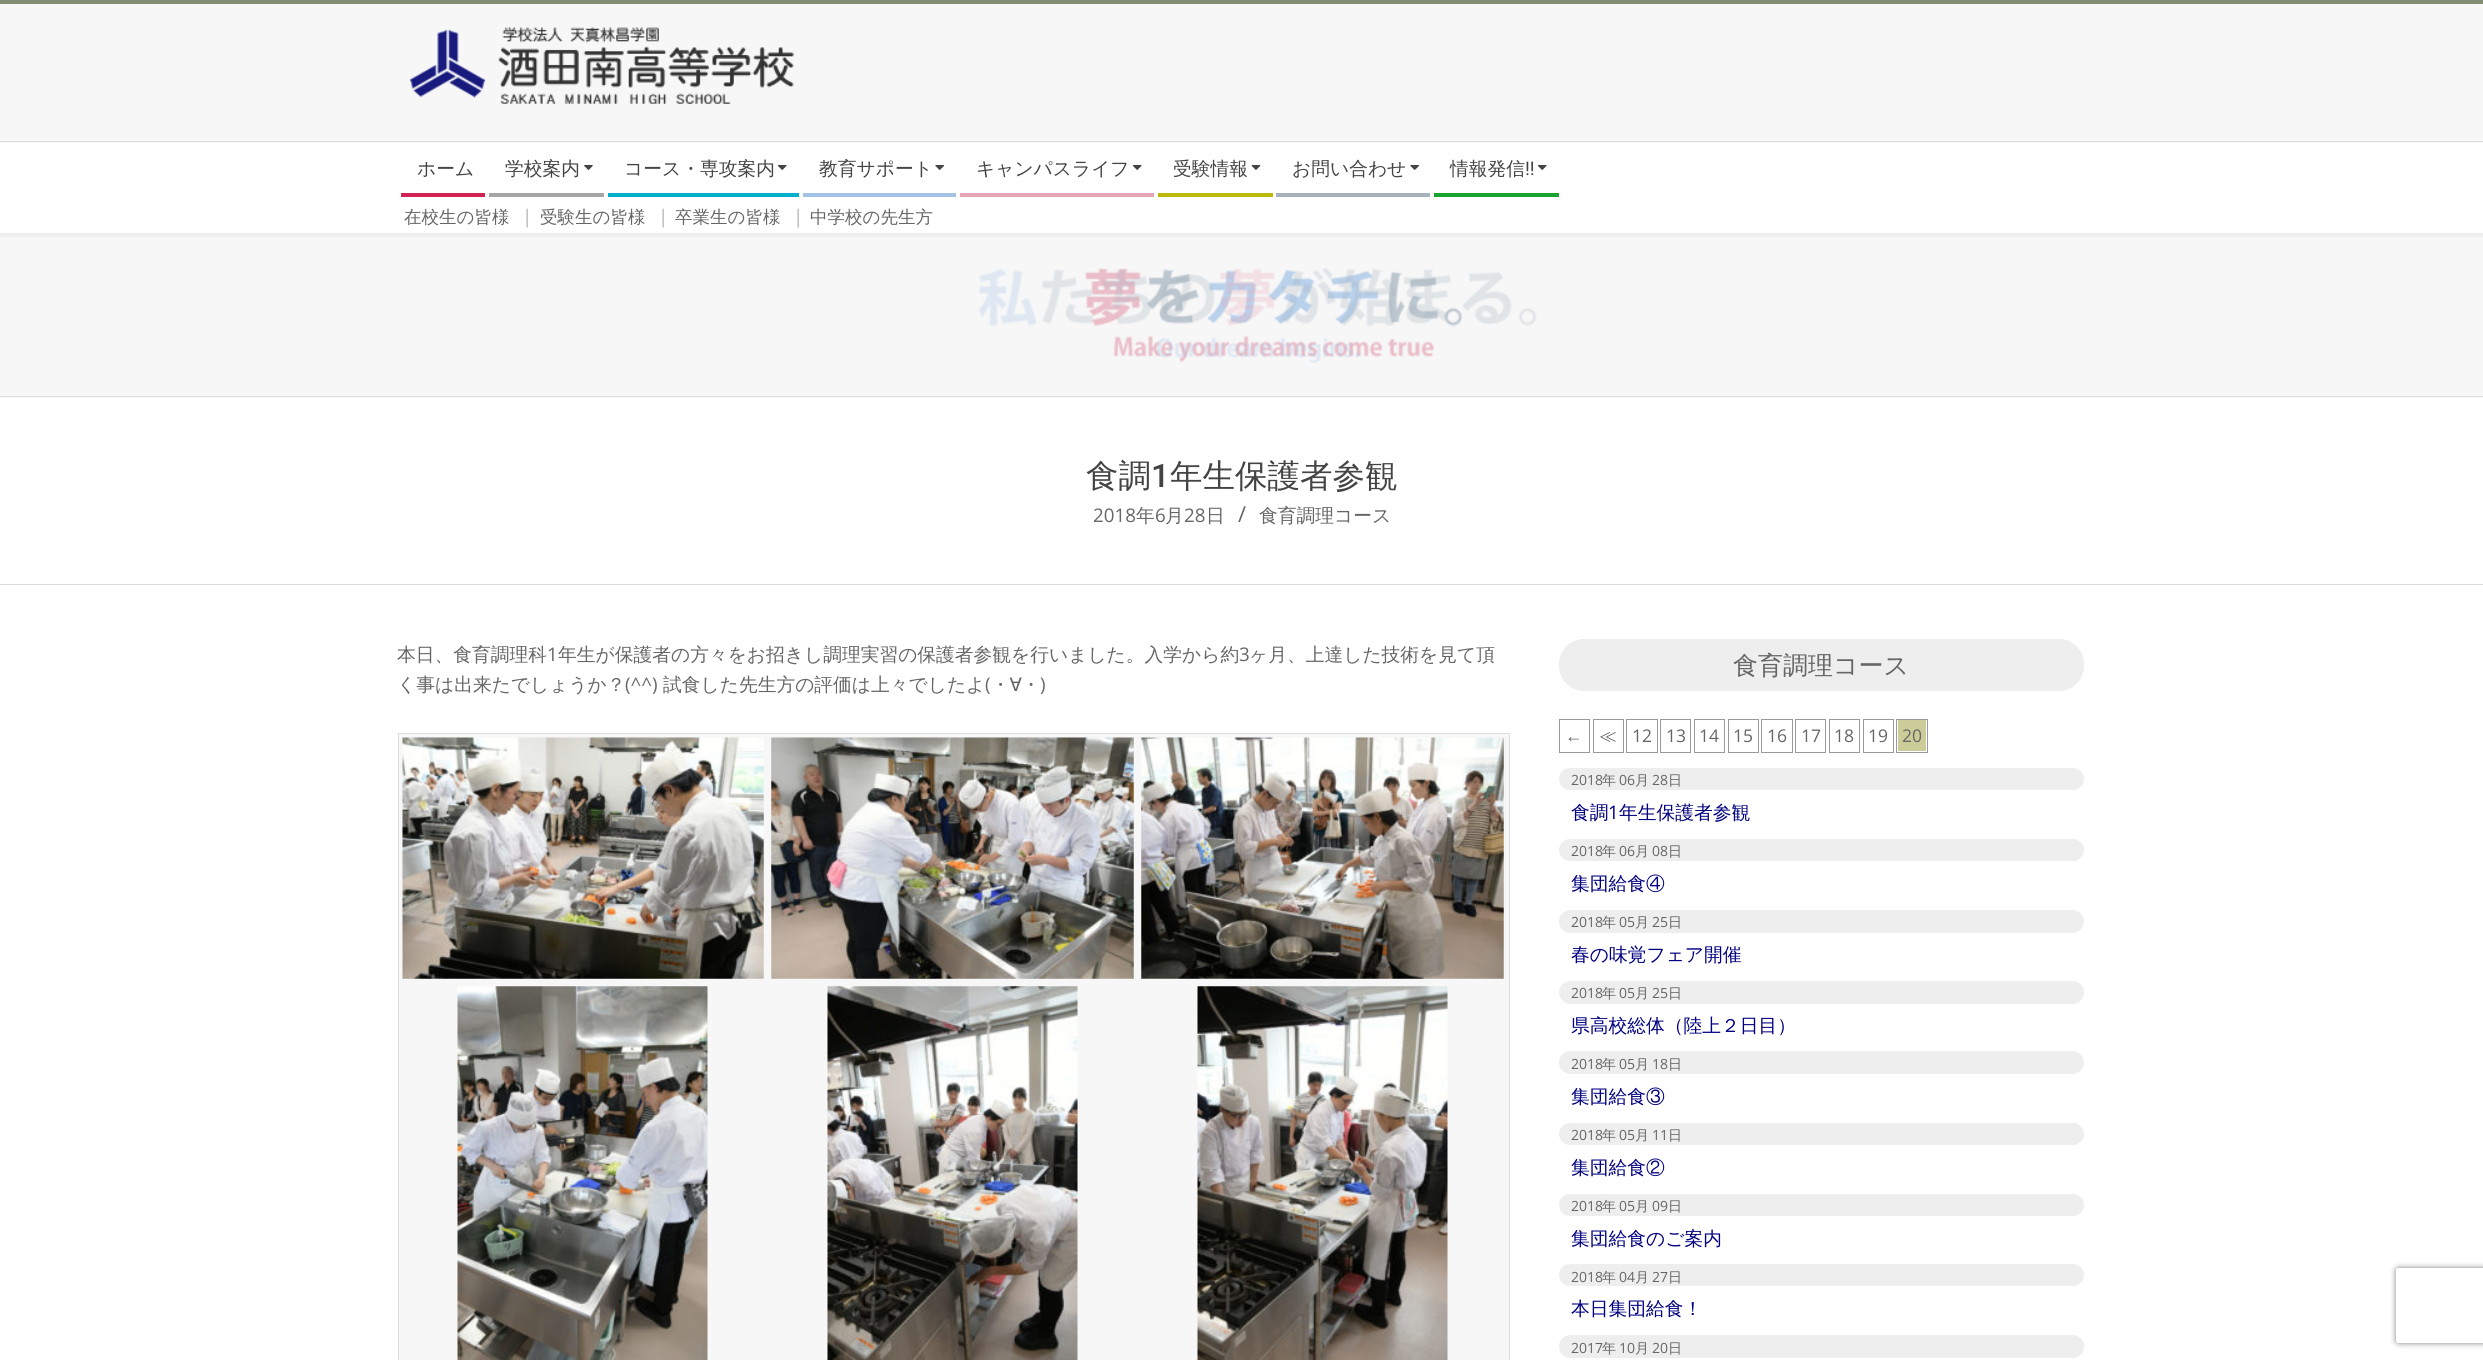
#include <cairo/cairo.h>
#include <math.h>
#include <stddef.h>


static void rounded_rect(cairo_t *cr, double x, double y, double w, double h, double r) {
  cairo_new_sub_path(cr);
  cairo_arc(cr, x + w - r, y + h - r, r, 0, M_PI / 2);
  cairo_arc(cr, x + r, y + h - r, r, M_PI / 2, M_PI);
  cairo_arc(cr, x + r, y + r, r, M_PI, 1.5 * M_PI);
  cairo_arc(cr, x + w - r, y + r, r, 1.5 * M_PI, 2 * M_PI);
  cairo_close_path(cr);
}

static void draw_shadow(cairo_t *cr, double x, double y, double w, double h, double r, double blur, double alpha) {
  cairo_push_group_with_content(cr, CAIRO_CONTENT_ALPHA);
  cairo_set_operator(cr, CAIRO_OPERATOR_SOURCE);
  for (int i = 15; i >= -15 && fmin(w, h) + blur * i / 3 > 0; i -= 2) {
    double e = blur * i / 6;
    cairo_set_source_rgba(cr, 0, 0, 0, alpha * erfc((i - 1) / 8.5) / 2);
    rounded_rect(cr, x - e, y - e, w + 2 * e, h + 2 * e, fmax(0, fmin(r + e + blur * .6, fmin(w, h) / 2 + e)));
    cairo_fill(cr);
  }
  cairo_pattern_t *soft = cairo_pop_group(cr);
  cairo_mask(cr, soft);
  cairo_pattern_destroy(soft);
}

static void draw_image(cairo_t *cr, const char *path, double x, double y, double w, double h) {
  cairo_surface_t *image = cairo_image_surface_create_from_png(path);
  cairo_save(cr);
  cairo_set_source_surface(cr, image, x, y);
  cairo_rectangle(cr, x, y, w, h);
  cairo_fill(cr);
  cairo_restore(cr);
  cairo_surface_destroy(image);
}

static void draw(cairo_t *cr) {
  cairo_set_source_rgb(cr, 247 / 255.0, 247 / 255.0, 247 / 255.0);
  cairo_paint(cr);
  cairo_set_source_rgb(cr, 133 / 255.0, 140 / 255.0, 116 / 255.0);
  cairo_rectangle(cr, 0, 0, 2483, 4);
  cairo_fill(cr);
  cairo_set_source_rgb(cr, 221 / 255.0, 221 / 255.0, 221 / 255.0);
  cairo_rectangle(cr, 0, 141, 2483, 1);
  cairo_fill(cr);
  draw_image(cr, "images/1.png", 409, 27, 385, 77);
  cairo_set_source_rgb(cr, 1, 1, 1);
  cairo_rectangle(cr, 0, 143, 2483, 90);
  cairo_fill(cr);
  cairo_set_source_rgb(cr, 238 / 255.0, 238 / 255.0, 238 / 255.0);
  cairo_rectangle(cr, 0, 233, 2483, 4);
  cairo_fill(cr);
  cairo_set_source_rgb(cr, 210 / 255.0, 34 / 255.0, 84 / 255.0);
  cairo_rectangle(cr, 401, 193, 84, 4);
  cairo_fill(cr);
  draw_image(cr, "images/2.png", 584, 165, 9, 5);
  cairo_set_source_rgb(cr, 165 / 255.0, 165 / 255.0, 165 / 255.0);
  cairo_rectangle(cr, 489, 193, 115, 4);
  cairo_fill(cr);
  draw_image(cr, "images/3.png", 777, 165, 10, 5);
  cairo_set_source_rgb(cr, 0, 175 / 255.0, 204 / 255.0);
  cairo_rectangle(cr, 608, 193, 191, 4);
  cairo_fill(cr);
  draw_image(cr, "images/4.png", 935, 165, 9, 5);
  cairo_set_source_rgb(cr, 162 / 255.0, 194 / 255.0, 230 / 255.0);
  cairo_rectangle(cr, 803, 193, 153, 4);
  cairo_fill(cr);
  draw_image(cr, "images/3.png", 1132, 165, 10, 5);
  cairo_set_source_rgb(cr, 229 / 255.0, 167 / 255.0, 182 / 255.0);
  cairo_rectangle(cr, 960, 193, 194, 4);
  cairo_fill(cr);
  draw_image(cr, "images/5.png", 1251, 165, 10, 5);
  cairo_set_source_rgb(cr, 188 / 255.0, 186 / 255.0, 8 / 255.0);
  cairo_rectangle(cr, 1158, 193, 115, 4);
  cairo_fill(cr);
  draw_image(cr, "images/4.png", 1410, 165, 9, 5);
  cairo_set_source_rgb(cr, 166 / 255.0, 179 / 255.0, 191 / 255.0);
  cairo_rectangle(cr, 1276, 193, 154, 4);
  cairo_fill(cr);
  draw_image(cr, "images/3.png", 1537, 165, 10, 5);
  cairo_set_source_rgb(cr, 26 / 255.0, 163 / 255.0, 49 / 255.0);
  cairo_rectangle(cr, 1434, 193, 125, 4);
  cairo_fill(cr);
  cairo_set_source_rgb(cr, 221 / 255.0, 221 / 255.0, 221 / 255.0);
  cairo_rectangle(cr, 0, 396, 2483, 1);
  cairo_fill(cr);
  draw_image(cr, "images/7.png", 1085, 268, 378, 95);
  draw_image(cr, "images/6.png", 978, 267, 559, 96);
  cairo_set_source_rgb(cr, 1, 1, 1);
  cairo_rectangle(cr, 0, 398, 2483, 962);
  cairo_fill(cr);
  cairo_set_source_rgb(cr, 221 / 255.0, 221 / 255.0, 221 / 255.0);
  cairo_rectangle(cr, 0, 584, 2483, 1);
  cairo_fill(cr);
  cairo_set_source_rgb(cr, 247 / 255.0, 247 / 255.0, 247 / 255.0);
  cairo_rectangle(cr, 398.5, 733.5, 1111, 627);
  cairo_fill_preserve(cr);
  cairo_set_source_rgb(cr, 221 / 255.0, 221 / 255.0, 221 / 255.0);
  cairo_set_line_width(cr, 1);
  cairo_stroke(cr);
  draw_image(cr, "images/8.png", 402, 737, 362, 242);
  draw_image(cr, "images/9.png", 771, 737, 363, 242);
  draw_image(cr, "images/10.png", 1141, 737, 363, 242);
  draw_image(cr, "images/11.png", 457, 986, 251, 374);
  draw_image(cr, "images/12.png", 827, 986, 251, 374);
  draw_image(cr, "images/13.png", 1197, 986, 251, 374);
  cairo_set_source_rgb(cr, 238 / 255.0, 238 / 255.0, 238 / 255.0);
  rounded_rect(cr, 1559, 639, 525, 52, 25);
  cairo_fill(cr);
  cairo_rectangle(cr, 1559.5, 719.5, 30, 33);
  cairo_set_source_rgb(cr, 153 / 255.0, 153 / 255.0, 153 / 255.0);
  cairo_stroke(cr);
  cairo_rectangle(cr, 1593.5, 719.5, 30, 33);
  cairo_stroke(cr);
  cairo_rectangle(cr, 1626.5, 719.5, 31, 33);
  cairo_stroke(cr);
  cairo_rectangle(cr, 1660.5, 719.5, 30, 33);
  cairo_stroke(cr);
  cairo_rectangle(cr, 1694.5, 719.5, 30, 33);
  cairo_stroke(cr);
  cairo_rectangle(cr, 1728.5, 719.5, 30, 33);
  cairo_stroke(cr);
  cairo_rectangle(cr, 1761.5, 719.5, 31, 33);
  cairo_stroke(cr);
  cairo_rectangle(cr, 1795.5, 719.5, 30, 33);
  cairo_stroke(cr);
  cairo_rectangle(cr, 1829.5, 719.5, 30, 33);
  cairo_stroke(cr);
  cairo_rectangle(cr, 1863.5, 719.5, 30, 33);
  cairo_stroke(cr);
  cairo_rectangle(cr, 1896.5, 719.5, 31, 33);
  cairo_stroke(cr);
  cairo_set_source_rgb(cr, 204 / 255.0, 204 / 255.0, 153 / 255.0);
  cairo_rectangle(cr, 1898, 720, 28, 31);
  cairo_fill(cr);
  cairo_set_source_rgb(cr, 238 / 255.0, 238 / 255.0, 238 / 255.0);
  rounded_rect(cr, 1559, 768, 525, 22, 11);
  cairo_fill(cr);
  rounded_rect(cr, 1559, 839, 525, 22, 11);
  cairo_fill(cr);
  rounded_rect(cr, 1559, 910, 525, 23, 11.5);
  cairo_fill(cr);
  rounded_rect(cr, 1559, 981, 525, 23, 11.5);
  cairo_fill(cr);
  rounded_rect(cr, 1559, 1051, 525, 23, 11.5);
  cairo_fill(cr);
  rounded_rect(cr, 1559, 1123, 525, 22, 11);
  cairo_fill(cr);
  rounded_rect(cr, 1559, 1194, 525, 22, 11);
  cairo_fill(cr);
  rounded_rect(cr, 1559, 1264, 525, 22, 11);
  cairo_fill(cr);
  rounded_rect(cr, 1559, 1335, 525, 23, 11.5);
  cairo_fill(cr);
  cairo_save(cr);
  cairo_set_fill_rule(cr, CAIRO_FILL_RULE_EVEN_ODD);
  cairo_new_path(cr);
  cairo_move_to(cr, 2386, 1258);
  cairo_line_to(cr, 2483, 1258);
  cairo_line_to(cr, 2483, 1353);
  cairo_line_to(cr, 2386, 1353);
  cairo_close_path(cr);
  cairo_move_to(cr, 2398.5, 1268);
  cairo_line_to(cr, 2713.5, 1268);
  cairo_curve_to(cr, 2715, 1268, 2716, 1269, 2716, 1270.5);
  cairo_line_to(cr, 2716, 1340.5);
  cairo_curve_to(cr, 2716, 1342, 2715, 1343, 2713.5, 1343);
  cairo_line_to(cr, 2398.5, 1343);
  cairo_curve_to(cr, 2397, 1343, 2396, 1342, 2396, 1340.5);
  cairo_line_to(cr, 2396, 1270.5);
  cairo_curve_to(cr, 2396, 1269, 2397, 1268, 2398.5, 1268);
  cairo_close_path(cr);
  cairo_clip(cr);
  cairo_set_source_rgb(cr, 128 / 255.0, 128 / 255.0, 128 / 255.0);
  draw_shadow(cr, 2396, 1268, 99, 75, 2.5, 3, 1);
  cairo_restore(cr);
  cairo_select_font_face(cr, "WenQuanYi Zen Hei Medium", CAIRO_FONT_SLANT_NORMAL, CAIRO_FONT_WEIGHT_NORMAL);
  cairo_set_font_size(cr, 18.75);
  cairo_set_source_rgb(cr, 68 / 255.0, 68 / 255.0, 68 / 255.0);
  cairo_move_to(cr, 417, 175);
  cairo_show_text(cr, "ホーム");
  cairo_move_to(cr, 505, 175);
  cairo_show_text(cr, "学校案内");
  cairo_move_to(cr, 624, 175);
  cairo_show_text(cr, "コース・専攻案内");
  cairo_move_to(cr, 819, 175);
  cairo_show_text(cr, "教育サポート");
  cairo_move_to(cr, 976, 175);
  cairo_show_text(cr, "キャンパスライフ");
  cairo_move_to(cr, 1173, 175);
  cairo_show_text(cr, "受験情報");
  cairo_move_to(cr, 1292, 175);
  cairo_show_text(cr, "お問い合わせ");
  cairo_move_to(cr, 1450, 175);
  cairo_show_text(cr, "情報発信");
  cairo_select_font_face(cr, "Roboto", CAIRO_FONT_SLANT_NORMAL, CAIRO_FONT_WEIGHT_NORMAL);
  cairo_move_to(cr, 1525, 175);
  cairo_show_text(cr, "!!");
  cairo_select_font_face(cr, "WenQuanYi Zen Hei Medium", CAIRO_FONT_SLANT_NORMAL, CAIRO_FONT_WEIGHT_NORMAL);
  cairo_set_font_size(cr, 17.5);
  cairo_set_source_rgb(cr, 102 / 255.0, 102 / 255.0, 102 / 255.0);
  cairo_move_to(cr, 404, 223);
  cairo_show_text(cr, "在校生の皆様");
  cairo_select_font_face(cr, "Open Sans", CAIRO_FONT_SLANT_NORMAL, CAIRO_FONT_WEIGHT_NORMAL);
  cairo_set_font_size(cr, 18.75);
  cairo_set_source_rgb(cr, 179 / 255.0, 179 / 255.0, 179 / 255.0);
  cairo_move_to(cr, 522, 223);
  cairo_show_text(cr, "|");
  cairo_select_font_face(cr, "WenQuanYi Zen Hei Medium", CAIRO_FONT_SLANT_NORMAL, CAIRO_FONT_WEIGHT_NORMAL);
  cairo_set_font_size(cr, 17.5);
  cairo_set_source_rgb(cr, 102 / 255.0, 102 / 255.0, 102 / 255.0);
  cairo_move_to(cr, 540, 223);
  cairo_show_text(cr, "受験生の皆様");
  cairo_select_font_face(cr, "Open Sans", CAIRO_FONT_SLANT_NORMAL, CAIRO_FONT_WEIGHT_NORMAL);
  cairo_set_font_size(cr, 18.75);
  cairo_set_source_rgb(cr, 179 / 255.0, 179 / 255.0, 179 / 255.0);
  cairo_move_to(cr, 658, 223);
  cairo_show_text(cr, "|");
  cairo_select_font_face(cr, "WenQuanYi Zen Hei Medium", CAIRO_FONT_SLANT_NORMAL, CAIRO_FONT_WEIGHT_NORMAL);
  cairo_set_font_size(cr, 17.5);
  cairo_set_source_rgb(cr, 102 / 255.0, 102 / 255.0, 102 / 255.0);
  cairo_move_to(cr, 675, 223);
  cairo_show_text(cr, "卒業生の皆様");
  cairo_select_font_face(cr, "Open Sans", CAIRO_FONT_SLANT_NORMAL, CAIRO_FONT_WEIGHT_NORMAL);
  cairo_set_font_size(cr, 18.75);
  cairo_set_source_rgb(cr, 179 / 255.0, 179 / 255.0, 179 / 255.0);
  cairo_move_to(cr, 793, 223);
  cairo_show_text(cr, "|");
  cairo_select_font_face(cr, "WenQuanYi Zen Hei Medium", CAIRO_FONT_SLANT_NORMAL, CAIRO_FONT_WEIGHT_NORMAL);
  cairo_set_font_size(cr, 17.5);
  cairo_set_source_rgb(cr, 102 / 255.0, 102 / 255.0, 102 / 255.0);
  cairo_move_to(cr, 810, 223);
  cairo_show_text(cr, "中学校の先生方");
  cairo_set_font_size(cr, 32.5);
  cairo_set_source_rgb(cr, 68 / 255.0, 68 / 255.0, 68 / 255.0);
  cairo_move_to(cr, 1086, 487);
  cairo_show_text(cr, "食調");
  cairo_select_font_face(cr, "Roboto Medium", CAIRO_FONT_SLANT_NORMAL, CAIRO_FONT_WEIGHT_NORMAL);
  cairo_move_to(cr, 1151, 487);
  cairo_show_text(cr, "1");
  cairo_select_font_face(cr, "WenQuanYi Zen Hei Medium", CAIRO_FONT_SLANT_NORMAL, CAIRO_FONT_WEIGHT_NORMAL);
  cairo_move_to(cr, 1170, 487);
  cairo_show_text(cr, "年生保護者参観");
  cairo_select_font_face(cr, "Open Sans", CAIRO_FONT_SLANT_NORMAL, CAIRO_FONT_WEIGHT_NORMAL);
  cairo_set_font_size(cr, 18.75);
  cairo_set_source_rgb(cr, 102 / 255.0, 102 / 255.0, 102 / 255.0);
  cairo_move_to(cr, 1093, 522);
  cairo_show_text(cr, "2018");
  cairo_select_font_face(cr, "WenQuanYi Zen Hei Medium", CAIRO_FONT_SLANT_NORMAL, CAIRO_FONT_WEIGHT_NORMAL);
  cairo_move_to(cr, 1136, 522);
  cairo_show_text(cr, "年");
  cairo_select_font_face(cr, "Open Sans", CAIRO_FONT_SLANT_NORMAL, CAIRO_FONT_WEIGHT_NORMAL);
  cairo_move_to(cr, 1155, 522);
  cairo_show_text(cr, "6");
  cairo_select_font_face(cr, "WenQuanYi Zen Hei Medium", CAIRO_FONT_SLANT_NORMAL, CAIRO_FONT_WEIGHT_NORMAL);
  cairo_move_to(cr, 1165, 522);
  cairo_show_text(cr, "月");
  cairo_select_font_face(cr, "Open Sans", CAIRO_FONT_SLANT_NORMAL, CAIRO_FONT_WEIGHT_NORMAL);
  cairo_move_to(cr, 1184, 522);
  cairo_show_text(cr, "28");
  cairo_select_font_face(cr, "WenQuanYi Zen Hei Medium", CAIRO_FONT_SLANT_NORMAL, CAIRO_FONT_WEIGHT_NORMAL);
  cairo_move_to(cr, 1206, 522);
  cairo_show_text(cr, "日");
  cairo_select_font_face(cr, "Open Sans", CAIRO_FONT_SLANT_NORMAL, CAIRO_FONT_WEIGHT_NORMAL);
  cairo_set_font_size(cr, 22);
  cairo_move_to(cr, 1238, 522);
  cairo_show_text(cr, "/");
  cairo_select_font_face(cr, "WenQuanYi Zen Hei Medium", CAIRO_FONT_SLANT_NORMAL, CAIRO_FONT_WEIGHT_NORMAL);
  cairo_set_font_size(cr, 18.75);
  cairo_move_to(cr, 1259, 522);
  cairo_show_text(cr, "食育調理コース");
  cairo_move_to(cr, 397, 661);
  cairo_show_text(cr, "本日、食育調理科");
  cairo_select_font_face(cr, "Open Sans", CAIRO_FONT_SLANT_NORMAL, CAIRO_FONT_WEIGHT_NORMAL);
  cairo_move_to(cr, 547, 661);
  cairo_show_text(cr, "1");
  cairo_select_font_face(cr, "WenQuanYi Zen Hei Medium", CAIRO_FONT_SLANT_NORMAL, CAIRO_FONT_WEIGHT_NORMAL);
  cairo_move_to(cr, 558, 661);
  cairo_show_text(cr, "年生が保護者の方々をお招きし調理実習の保護者参観を行いました。入学から約");
  cairo_select_font_face(cr, "Open Sans", CAIRO_FONT_SLANT_NORMAL, CAIRO_FONT_WEIGHT_NORMAL);
  cairo_move_to(cr, 1239, 661);
  cairo_show_text(cr, "3");
  cairo_select_font_face(cr, "WenQuanYi Zen Hei Medium", CAIRO_FONT_SLANT_NORMAL, CAIRO_FONT_WEIGHT_NORMAL);
  cairo_move_to(cr, 1249, 661);
  cairo_show_text(cr, "ヶ月、上達した技術を見て頂");
  cairo_move_to(cr, 397, 691);
  cairo_show_text(cr, "く事は出来たでしょうか？");
  cairo_select_font_face(cr, "Open Sans", CAIRO_FONT_SLANT_NORMAL, CAIRO_FONT_WEIGHT_NORMAL);
  cairo_move_to(cr, 625, 691);
  cairo_show_text(cr, "(^^)");
  cairo_select_font_face(cr, "WenQuanYi Zen Hei Medium", CAIRO_FONT_SLANT_NORMAL, CAIRO_FONT_WEIGHT_NORMAL);
  cairo_move_to(cr, 663, 691);
  cairo_show_text(cr, "試食した先生方の評価は上々でしたよ ・∀・");
  cairo_select_font_face(cr, "Open Sans", CAIRO_FONT_SLANT_NORMAL, CAIRO_FONT_WEIGHT_NORMAL);
  cairo_move_to(cr, 985, 691);
  cairo_show_text(cr, "(");
  cairo_move_to(cr, 1040, 691);
  cairo_show_text(cr, ")");
  cairo_select_font_face(cr, "WenQuanYi Zen Hei Medium", CAIRO_FONT_SLANT_NORMAL, CAIRO_FONT_WEIGHT_NORMAL);
  cairo_set_font_size(cr, 25);
  cairo_move_to(cr, 1733, 674);
  cairo_show_text(cr, "食育調理コース");
  cairo_select_font_face(cr, "Liberation Sans", CAIRO_FONT_SLANT_NORMAL, CAIRO_FONT_WEIGHT_NORMAL);
  cairo_set_font_size(cr, 17.5);
  cairo_move_to(cr, 1565, 742);
  cairo_show_text(cr, "←");
  cairo_select_font_face(cr, "WenQuanYi Zen Hei Medium", CAIRO_FONT_SLANT_NORMAL, CAIRO_FONT_WEIGHT_NORMAL);
  cairo_move_to(cr, 1599, 742);
  cairo_show_text(cr, "≪");
  cairo_select_font_face(cr, "Open Sans", CAIRO_FONT_SLANT_NORMAL, CAIRO_FONT_WEIGHT_NORMAL);
  cairo_move_to(cr, 1632, 742);
  cairo_show_text(cr, "12");
  cairo_move_to(cr, 1666, 742);
  cairo_show_text(cr, "13");
  cairo_move_to(cr, 1699, 742);
  cairo_show_text(cr, "14");
  cairo_move_to(cr, 1733, 742);
  cairo_show_text(cr, "15");
  cairo_move_to(cr, 1767, 742);
  cairo_show_text(cr, "16");
  cairo_move_to(cr, 1801, 742);
  cairo_show_text(cr, "17");
  cairo_move_to(cr, 1834, 742);
  cairo_show_text(cr, "18");
  cairo_move_to(cr, 1868, 742);
  cairo_show_text(cr, "19");
  cairo_move_to(cr, 1902, 742);
  cairo_show_text(cr, "20");
  cairo_set_font_size(cr, 14);
  cairo_move_to(cr, 1571, 785);
  cairo_show_text(cr, "2018");
  cairo_select_font_face(cr, "WenQuanYi Zen Hei Medium", CAIRO_FONT_SLANT_NORMAL, CAIRO_FONT_WEIGHT_NORMAL);
  cairo_move_to(cr, 1602, 785);
  cairo_show_text(cr, "年");
  cairo_select_font_face(cr, "Open Sans", CAIRO_FONT_SLANT_NORMAL, CAIRO_FONT_WEIGHT_NORMAL);
  cairo_move_to(cr, 1619, 785);
  cairo_show_text(cr, "06");
  cairo_select_font_face(cr, "WenQuanYi Zen Hei Medium", CAIRO_FONT_SLANT_NORMAL, CAIRO_FONT_WEIGHT_NORMAL);
  cairo_move_to(cr, 1635, 785);
  cairo_show_text(cr, "月");
  cairo_select_font_face(cr, "Open Sans", CAIRO_FONT_SLANT_NORMAL, CAIRO_FONT_WEIGHT_NORMAL);
  cairo_move_to(cr, 1652, 785);
  cairo_show_text(cr, "28");
  cairo_select_font_face(cr, "WenQuanYi Zen Hei Medium", CAIRO_FONT_SLANT_NORMAL, CAIRO_FONT_WEIGHT_NORMAL);
  cairo_move_to(cr, 1668, 785);
  cairo_show_text(cr, "日");
  cairo_set_font_size(cr, 18.75);
  cairo_set_source_rgb(cr, 0, 0, 128 / 255.0);
  cairo_move_to(cr, 1571, 819);
  cairo_show_text(cr, "食調");
  cairo_select_font_face(cr, "Open Sans", CAIRO_FONT_SLANT_NORMAL, CAIRO_FONT_WEIGHT_NORMAL);
  cairo_move_to(cr, 1608, 819);
  cairo_show_text(cr, "1");
  cairo_select_font_face(cr, "WenQuanYi Zen Hei Medium", CAIRO_FONT_SLANT_NORMAL, CAIRO_FONT_WEIGHT_NORMAL);
  cairo_move_to(cr, 1619, 819);
  cairo_show_text(cr, "年生保護者参観");
  cairo_select_font_face(cr, "Open Sans", CAIRO_FONT_SLANT_NORMAL, CAIRO_FONT_WEIGHT_NORMAL);
  cairo_set_font_size(cr, 14);
  cairo_set_source_rgb(cr, 102 / 255.0, 102 / 255.0, 102 / 255.0);
  cairo_move_to(cr, 1571, 856);
  cairo_show_text(cr, "2018");
  cairo_select_font_face(cr, "WenQuanYi Zen Hei Medium", CAIRO_FONT_SLANT_NORMAL, CAIRO_FONT_WEIGHT_NORMAL);
  cairo_move_to(cr, 1602, 856);
  cairo_show_text(cr, "年");
  cairo_select_font_face(cr, "Open Sans", CAIRO_FONT_SLANT_NORMAL, CAIRO_FONT_WEIGHT_NORMAL);
  cairo_move_to(cr, 1619, 856);
  cairo_show_text(cr, "06");
  cairo_select_font_face(cr, "WenQuanYi Zen Hei Medium", CAIRO_FONT_SLANT_NORMAL, CAIRO_FONT_WEIGHT_NORMAL);
  cairo_move_to(cr, 1635, 856);
  cairo_show_text(cr, "月");
  cairo_select_font_face(cr, "Open Sans", CAIRO_FONT_SLANT_NORMAL, CAIRO_FONT_WEIGHT_NORMAL);
  cairo_move_to(cr, 1652, 856);
  cairo_show_text(cr, "08");
  cairo_select_font_face(cr, "WenQuanYi Zen Hei Medium", CAIRO_FONT_SLANT_NORMAL, CAIRO_FONT_WEIGHT_NORMAL);
  cairo_move_to(cr, 1668, 856);
  cairo_show_text(cr, "日");
  cairo_set_font_size(cr, 18.75);
  cairo_set_source_rgb(cr, 0, 0, 128 / 255.0);
  cairo_move_to(cr, 1571, 890);
  cairo_show_text(cr, "集団給食④");
  cairo_select_font_face(cr, "Open Sans", CAIRO_FONT_SLANT_NORMAL, CAIRO_FONT_WEIGHT_NORMAL);
  cairo_set_font_size(cr, 14);
  cairo_set_source_rgb(cr, 102 / 255.0, 102 / 255.0, 102 / 255.0);
  cairo_move_to(cr, 1571, 927);
  cairo_show_text(cr, "2018");
  cairo_select_font_face(cr, "WenQuanYi Zen Hei Medium", CAIRO_FONT_SLANT_NORMAL, CAIRO_FONT_WEIGHT_NORMAL);
  cairo_move_to(cr, 1602, 927);
  cairo_show_text(cr, "年");
  cairo_select_font_face(cr, "Open Sans", CAIRO_FONT_SLANT_NORMAL, CAIRO_FONT_WEIGHT_NORMAL);
  cairo_move_to(cr, 1619, 927);
  cairo_show_text(cr, "05");
  cairo_select_font_face(cr, "WenQuanYi Zen Hei Medium", CAIRO_FONT_SLANT_NORMAL, CAIRO_FONT_WEIGHT_NORMAL);
  cairo_move_to(cr, 1635, 927);
  cairo_show_text(cr, "月");
  cairo_select_font_face(cr, "Open Sans", CAIRO_FONT_SLANT_NORMAL, CAIRO_FONT_WEIGHT_NORMAL);
  cairo_move_to(cr, 1652, 927);
  cairo_show_text(cr, "25");
  cairo_select_font_face(cr, "WenQuanYi Zen Hei Medium", CAIRO_FONT_SLANT_NORMAL, CAIRO_FONT_WEIGHT_NORMAL);
  cairo_move_to(cr, 1668, 927);
  cairo_show_text(cr, "日");
  cairo_set_font_size(cr, 18.75);
  cairo_set_source_rgb(cr, 0, 0, 128 / 255.0);
  cairo_move_to(cr, 1571, 961);
  cairo_show_text(cr, "春の味覚フェア開催");
  cairo_select_font_face(cr, "Open Sans", CAIRO_FONT_SLANT_NORMAL, CAIRO_FONT_WEIGHT_NORMAL);
  cairo_set_font_size(cr, 14);
  cairo_set_source_rgb(cr, 102 / 255.0, 102 / 255.0, 102 / 255.0);
  cairo_move_to(cr, 1571, 998);
  cairo_show_text(cr, "2018");
  cairo_select_font_face(cr, "WenQuanYi Zen Hei Medium", CAIRO_FONT_SLANT_NORMAL, CAIRO_FONT_WEIGHT_NORMAL);
  cairo_move_to(cr, 1602, 998);
  cairo_show_text(cr, "年");
  cairo_select_font_face(cr, "Open Sans", CAIRO_FONT_SLANT_NORMAL, CAIRO_FONT_WEIGHT_NORMAL);
  cairo_move_to(cr, 1619, 998);
  cairo_show_text(cr, "05");
  cairo_select_font_face(cr, "WenQuanYi Zen Hei Medium", CAIRO_FONT_SLANT_NORMAL, CAIRO_FONT_WEIGHT_NORMAL);
  cairo_move_to(cr, 1635, 998);
  cairo_show_text(cr, "月");
  cairo_select_font_face(cr, "Open Sans", CAIRO_FONT_SLANT_NORMAL, CAIRO_FONT_WEIGHT_NORMAL);
  cairo_move_to(cr, 1652, 998);
  cairo_show_text(cr, "25");
  cairo_select_font_face(cr, "WenQuanYi Zen Hei Medium", CAIRO_FONT_SLANT_NORMAL, CAIRO_FONT_WEIGHT_NORMAL);
  cairo_move_to(cr, 1668, 998);
  cairo_show_text(cr, "日");
  cairo_set_font_size(cr, 18.75);
  cairo_set_source_rgb(cr, 0, 0, 128 / 255.0);
  cairo_move_to(cr, 1571, 1032);
  cairo_show_text(cr, "県高校総体（陸上２日目）");
  cairo_select_font_face(cr, "Open Sans", CAIRO_FONT_SLANT_NORMAL, CAIRO_FONT_WEIGHT_NORMAL);
  cairo_set_font_size(cr, 14);
  cairo_set_source_rgb(cr, 102 / 255.0, 102 / 255.0, 102 / 255.0);
  cairo_move_to(cr, 1571, 1069);
  cairo_show_text(cr, "2018");
  cairo_select_font_face(cr, "WenQuanYi Zen Hei Medium", CAIRO_FONT_SLANT_NORMAL, CAIRO_FONT_WEIGHT_NORMAL);
  cairo_move_to(cr, 1602, 1069);
  cairo_show_text(cr, "年");
  cairo_select_font_face(cr, "Open Sans", CAIRO_FONT_SLANT_NORMAL, CAIRO_FONT_WEIGHT_NORMAL);
  cairo_move_to(cr, 1619, 1069);
  cairo_show_text(cr, "05");
  cairo_select_font_face(cr, "WenQuanYi Zen Hei Medium", CAIRO_FONT_SLANT_NORMAL, CAIRO_FONT_WEIGHT_NORMAL);
  cairo_move_to(cr, 1635, 1069);
  cairo_show_text(cr, "月");
  cairo_select_font_face(cr, "Open Sans", CAIRO_FONT_SLANT_NORMAL, CAIRO_FONT_WEIGHT_NORMAL);
  cairo_move_to(cr, 1652, 1069);
  cairo_show_text(cr, "18");
  cairo_select_font_face(cr, "WenQuanYi Zen Hei Medium", CAIRO_FONT_SLANT_NORMAL, CAIRO_FONT_WEIGHT_NORMAL);
  cairo_move_to(cr, 1668, 1069);
  cairo_show_text(cr, "日");
  cairo_set_font_size(cr, 18.75);
  cairo_set_source_rgb(cr, 0, 0, 128 / 255.0);
  cairo_move_to(cr, 1571, 1103);
  cairo_show_text(cr, "集団給食③");
  cairo_select_font_face(cr, "Open Sans", CAIRO_FONT_SLANT_NORMAL, CAIRO_FONT_WEIGHT_NORMAL);
  cairo_set_font_size(cr, 14);
  cairo_set_source_rgb(cr, 102 / 255.0, 102 / 255.0, 102 / 255.0);
  cairo_move_to(cr, 1571, 1140);
  cairo_show_text(cr, "2018");
  cairo_select_font_face(cr, "WenQuanYi Zen Hei Medium", CAIRO_FONT_SLANT_NORMAL, CAIRO_FONT_WEIGHT_NORMAL);
  cairo_move_to(cr, 1602, 1140);
  cairo_show_text(cr, "年");
  cairo_select_font_face(cr, "Open Sans", CAIRO_FONT_SLANT_NORMAL, CAIRO_FONT_WEIGHT_NORMAL);
  cairo_move_to(cr, 1619, 1140);
  cairo_show_text(cr, "05");
  cairo_select_font_face(cr, "WenQuanYi Zen Hei Medium", CAIRO_FONT_SLANT_NORMAL, CAIRO_FONT_WEIGHT_NORMAL);
  cairo_move_to(cr, 1635, 1140);
  cairo_show_text(cr, "月");
  cairo_select_font_face(cr, "Open Sans", CAIRO_FONT_SLANT_NORMAL, CAIRO_FONT_WEIGHT_NORMAL);
  cairo_move_to(cr, 1652, 1140);
  cairo_show_text(cr, "11");
  cairo_select_font_face(cr, "WenQuanYi Zen Hei Medium", CAIRO_FONT_SLANT_NORMAL, CAIRO_FONT_WEIGHT_NORMAL);
  cairo_move_to(cr, 1668, 1140);
  cairo_show_text(cr, "日");
  cairo_set_font_size(cr, 18.75);
  cairo_set_source_rgb(cr, 0, 0, 128 / 255.0);
  cairo_move_to(cr, 1571, 1174);
  cairo_show_text(cr, "集団給食②");
  cairo_select_font_face(cr, "Open Sans", CAIRO_FONT_SLANT_NORMAL, CAIRO_FONT_WEIGHT_NORMAL);
  cairo_set_font_size(cr, 14);
  cairo_set_source_rgb(cr, 102 / 255.0, 102 / 255.0, 102 / 255.0);
  cairo_move_to(cr, 1571, 1211);
  cairo_show_text(cr, "2018");
  cairo_select_font_face(cr, "WenQuanYi Zen Hei Medium", CAIRO_FONT_SLANT_NORMAL, CAIRO_FONT_WEIGHT_NORMAL);
  cairo_move_to(cr, 1602, 1211);
  cairo_show_text(cr, "年");
  cairo_select_font_face(cr, "Open Sans", CAIRO_FONT_SLANT_NORMAL, CAIRO_FONT_WEIGHT_NORMAL);
  cairo_move_to(cr, 1619, 1211);
  cairo_show_text(cr, "05");
  cairo_select_font_face(cr, "WenQuanYi Zen Hei Medium", CAIRO_FONT_SLANT_NORMAL, CAIRO_FONT_WEIGHT_NORMAL);
  cairo_move_to(cr, 1635, 1211);
  cairo_show_text(cr, "月");
  cairo_select_font_face(cr, "Open Sans", CAIRO_FONT_SLANT_NORMAL, CAIRO_FONT_WEIGHT_NORMAL);
  cairo_move_to(cr, 1652, 1211);
  cairo_show_text(cr, "09");
  cairo_select_font_face(cr, "WenQuanYi Zen Hei Medium", CAIRO_FONT_SLANT_NORMAL, CAIRO_FONT_WEIGHT_NORMAL);
  cairo_move_to(cr, 1668, 1211);
  cairo_show_text(cr, "日");
  cairo_set_font_size(cr, 18.75);
  cairo_set_source_rgb(cr, 0, 0, 128 / 255.0);
  cairo_move_to(cr, 1571, 1245);
  cairo_show_text(cr, "集団給食のご案内");
  cairo_select_font_face(cr, "Open Sans", CAIRO_FONT_SLANT_NORMAL, CAIRO_FONT_WEIGHT_NORMAL);
  cairo_set_font_size(cr, 14);
  cairo_set_source_rgb(cr, 102 / 255.0, 102 / 255.0, 102 / 255.0);
  cairo_move_to(cr, 1571, 1282);
  cairo_show_text(cr, "2018");
  cairo_select_font_face(cr, "WenQuanYi Zen Hei Medium", CAIRO_FONT_SLANT_NORMAL, CAIRO_FONT_WEIGHT_NORMAL);
  cairo_move_to(cr, 1602, 1282);
  cairo_show_text(cr, "年");
  cairo_select_font_face(cr, "Open Sans", CAIRO_FONT_SLANT_NORMAL, CAIRO_FONT_WEIGHT_NORMAL);
  cairo_move_to(cr, 1619, 1282);
  cairo_show_text(cr, "04");
  cairo_select_font_face(cr, "WenQuanYi Zen Hei Medium", CAIRO_FONT_SLANT_NORMAL, CAIRO_FONT_WEIGHT_NORMAL);
  cairo_move_to(cr, 1635, 1282);
  cairo_show_text(cr, "月");
  cairo_select_font_face(cr, "Open Sans", CAIRO_FONT_SLANT_NORMAL, CAIRO_FONT_WEIGHT_NORMAL);
  cairo_move_to(cr, 1652, 1282);
  cairo_show_text(cr, "27");
  cairo_select_font_face(cr, "WenQuanYi Zen Hei Medium", CAIRO_FONT_SLANT_NORMAL, CAIRO_FONT_WEIGHT_NORMAL);
  cairo_move_to(cr, 1668, 1282);
  cairo_show_text(cr, "日");
  cairo_set_font_size(cr, 18.75);
  cairo_set_source_rgb(cr, 0, 0, 128 / 255.0);
  cairo_move_to(cr, 1571, 1315);
  cairo_show_text(cr, "本日集団給食！");
  cairo_select_font_face(cr, "Open Sans", CAIRO_FONT_SLANT_NORMAL, CAIRO_FONT_WEIGHT_NORMAL);
  cairo_set_font_size(cr, 14);
  cairo_set_source_rgb(cr, 102 / 255.0, 102 / 255.0, 102 / 255.0);
  cairo_move_to(cr, 1571, 1353);
  cairo_show_text(cr, "2017");
  cairo_select_font_face(cr, "WenQuanYi Zen Hei Medium", CAIRO_FONT_SLANT_NORMAL, CAIRO_FONT_WEIGHT_NORMAL);
  cairo_move_to(cr, 1602, 1353);
  cairo_show_text(cr, "年");
  cairo_select_font_face(cr, "Open Sans", CAIRO_FONT_SLANT_NORMAL, CAIRO_FONT_WEIGHT_NORMAL);
  cairo_move_to(cr, 1619, 1353);
  cairo_show_text(cr, "10");
  cairo_select_font_face(cr, "WenQuanYi Zen Hei Medium", CAIRO_FONT_SLANT_NORMAL, CAIRO_FONT_WEIGHT_NORMAL);
  cairo_move_to(cr, 1635, 1353);
  cairo_show_text(cr, "月");
  cairo_select_font_face(cr, "Open Sans", CAIRO_FONT_SLANT_NORMAL, CAIRO_FONT_WEIGHT_NORMAL);
  cairo_move_to(cr, 1652, 1353);
  cairo_show_text(cr, "20");
  cairo_select_font_face(cr, "WenQuanYi Zen Hei Medium", CAIRO_FONT_SLANT_NORMAL, CAIRO_FONT_WEIGHT_NORMAL);
  cairo_move_to(cr, 1668, 1353);
  cairo_show_text(cr, "日");
}

int main(void) {
  cairo_surface_t *surface = cairo_image_surface_create(CAIRO_FORMAT_RGB24, 2483, 1360);
  cairo_t *cr = cairo_create(surface);
  cairo_font_options_t *options = cairo_font_options_create();
  cairo_font_options_set_hint_metrics(options, CAIRO_HINT_METRICS_OFF);
  cairo_font_options_set_hint_style(options, CAIRO_HINT_STYLE_NONE);
  cairo_set_font_options(cr, options);
  cairo_set_miter_limit(cr, 4);
  draw(cr);
  cairo_surface_write_to_png(surface, "out.png");
  cairo_font_options_destroy(options);
  cairo_destroy(cr);
  cairo_surface_destroy(surface);
  return 0;
}
